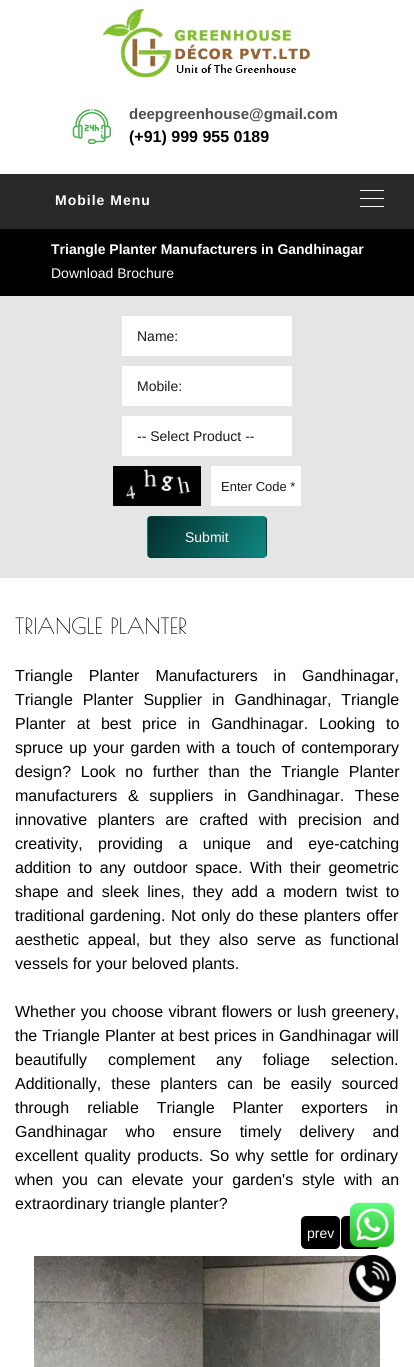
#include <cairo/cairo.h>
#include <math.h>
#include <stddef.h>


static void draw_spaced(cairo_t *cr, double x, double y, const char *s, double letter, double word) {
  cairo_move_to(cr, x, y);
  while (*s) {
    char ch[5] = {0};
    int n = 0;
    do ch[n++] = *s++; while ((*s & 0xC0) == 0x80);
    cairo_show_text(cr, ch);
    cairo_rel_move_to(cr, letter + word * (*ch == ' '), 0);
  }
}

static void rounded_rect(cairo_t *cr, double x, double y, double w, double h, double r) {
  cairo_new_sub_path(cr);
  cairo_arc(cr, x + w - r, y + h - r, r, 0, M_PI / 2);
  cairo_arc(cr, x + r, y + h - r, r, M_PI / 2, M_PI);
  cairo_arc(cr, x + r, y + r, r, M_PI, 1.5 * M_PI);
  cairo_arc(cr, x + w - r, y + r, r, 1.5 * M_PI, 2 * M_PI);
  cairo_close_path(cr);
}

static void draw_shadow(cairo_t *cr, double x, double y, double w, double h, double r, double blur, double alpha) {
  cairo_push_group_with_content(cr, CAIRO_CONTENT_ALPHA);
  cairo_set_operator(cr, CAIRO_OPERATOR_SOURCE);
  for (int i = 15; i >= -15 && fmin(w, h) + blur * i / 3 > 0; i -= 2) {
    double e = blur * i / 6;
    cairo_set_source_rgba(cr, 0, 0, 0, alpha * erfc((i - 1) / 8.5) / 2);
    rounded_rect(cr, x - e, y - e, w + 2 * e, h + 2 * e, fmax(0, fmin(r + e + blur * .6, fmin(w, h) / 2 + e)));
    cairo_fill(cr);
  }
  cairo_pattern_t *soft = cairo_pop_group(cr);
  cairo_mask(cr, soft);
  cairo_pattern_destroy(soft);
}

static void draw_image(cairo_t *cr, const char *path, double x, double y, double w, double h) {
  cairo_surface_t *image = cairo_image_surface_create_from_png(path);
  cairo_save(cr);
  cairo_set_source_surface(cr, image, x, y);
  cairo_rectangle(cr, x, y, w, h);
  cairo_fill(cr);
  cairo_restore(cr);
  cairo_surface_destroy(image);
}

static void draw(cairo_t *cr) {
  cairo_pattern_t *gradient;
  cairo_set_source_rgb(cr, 1, 1, 1);
  cairo_paint(cr);
  cairo_set_source_rgb(cr, 0, 0, 0);
  cairo_rectangle(cr, 0, 229, 414, 67);
  cairo_fill(cr);
  cairo_set_source_rgb(cr, 0, 0, 0);
  draw_shadow(cr, 0, 176, 414, 55, 0, 2.5, 0.08);
  cairo_set_source_rgb(cr, 1, 1, 1);
  cairo_rectangle(cr, 21, 173, 372, 1);
  cairo_fill(cr);
  draw_image(cr, "images/1.png", 103, 9, 207, 68);
  draw_image(cr, "images/2.png", 72, 109, 39, 35);
  cairo_set_source_rgb(cr, 41 / 255.0, 41 / 255.0, 41 / 255.0);
  cairo_rectangle(cr, 0, 174, 414, 55);
  cairo_fill(cr);
  cairo_set_source_rgb(cr, 1, 1, 1);
  cairo_rectangle(cr, 360, 198, 24, 1);
  cairo_fill(cr);
  cairo_rectangle(cr, 360, 190, 24, 1);
  cairo_fill(cr);
  cairo_rectangle(cr, 360, 206, 24, 1);
  cairo_fill(cr);
  cairo_set_source_rgb(cr, 229 / 255.0, 229 / 255.0, 229 / 255.0);
  cairo_rectangle(cr, 0, 296, 414, 282);
  cairo_fill(cr);
  cairo_set_source_rgb(cr, 1, 1, 1);
  cairo_rectangle(cr, 122, 316, 170, 40);
  cairo_fill(cr);
  cairo_rectangle(cr, 122, 366, 170, 40);
  cairo_fill(cr);
  cairo_rectangle(cr, 122, 416, 170, 40);
  cairo_fill(cr);
  draw_image(cr, "images/3.png", 113, 466, 88, 40);
  cairo_rectangle(cr, 211, 466, 90, 40);
  cairo_fill(cr);
  cairo_save(cr);
  rounded_rect(cr, 147, 516, 120, 42, 4);
  cairo_clip(cr);
  gradient = cairo_pattern_create_linear(154, 466, 260, 528);
  cairo_pattern_add_color_stop_rgba(gradient, 0, 3 / 255.0, 45 / 255.0, 43 / 255.0, 1);
  cairo_pattern_add_color_stop_rgba(gradient, 1, 16 / 255.0, 135 / 255.0, 129 / 255.0, 1);
  cairo_set_source(cr, gradient);
  cairo_pattern_destroy(gradient);
  cairo_rectangle(cr, 148, 516, 118, 1);
  cairo_fill(cr);
  gradient = cairo_pattern_create_linear(36, 506, 142, 568);
  cairo_pattern_add_color_stop_rgba(gradient, 0, 3 / 255.0, 45 / 255.0, 43 / 255.0, 1);
  cairo_pattern_add_color_stop_rgba(gradient, 1, 16 / 255.0, 135 / 255.0, 129 / 255.0, 1);
  cairo_set_source(cr, gradient);
  cairo_pattern_destroy(gradient);
  cairo_rectangle(cr, 147, 517, 1, 40);
  cairo_fill(cr);
  gradient = cairo_pattern_create_linear(154, 506, 260, 568);
  cairo_pattern_add_color_stop_rgba(gradient, 0, 3 / 255.0, 45 / 255.0, 43 / 255.0, 1);
  cairo_pattern_add_color_stop_rgba(gradient, 1, 16 / 255.0, 135 / 255.0, 129 / 255.0, 1);
  cairo_set_source(cr, gradient);
  cairo_pattern_destroy(gradient);
  cairo_rectangle(cr, 148, 517, 118, 40);
  cairo_fill(cr);
  gradient = cairo_pattern_create_linear(272, 506, 378, 568);
  cairo_pattern_add_color_stop_rgba(gradient, 0, 3 / 255.0, 45 / 255.0, 43 / 255.0, 1);
  cairo_pattern_add_color_stop_rgba(gradient, 1, 16 / 255.0, 135 / 255.0, 129 / 255.0, 1);
  cairo_set_source(cr, gradient);
  cairo_pattern_destroy(gradient);
  cairo_rectangle(cr, 266, 517, 1, 40);
  cairo_fill(cr);
  gradient = cairo_pattern_create_linear(154, 546, 260, 608);
  cairo_pattern_add_color_stop_rgba(gradient, 0, 3 / 255.0, 45 / 255.0, 43 / 255.0, 1);
  cairo_pattern_add_color_stop_rgba(gradient, 1, 16 / 255.0, 135 / 255.0, 129 / 255.0, 1);
  cairo_set_source(cr, gradient);
  cairo_pattern_destroy(gradient);
  cairo_rectangle(cr, 148, 557, 118, 1);
  cairo_fill(cr);
  cairo_restore(cr);
  cairo_set_source_rgb(cr, 0, 0, 0);
  rounded_rect(cr, 301, 1216, 39, 33, 5);
  cairo_fill(cr);
  rounded_rect(cr, 341, 1216, 39, 33, 5);
  cairo_fill(cr);
  draw_image(cr, "images/4.png", 34, 1256, 346, 111);
  draw_image(cr, "images/5.png", 349, 1202, 45, 45);
  draw_image(cr, "images/6.png", 349, 1255, 47, 47);
  cairo_select_font_face(cr, "Liberation Sans", CAIRO_FONT_SLANT_NORMAL, CAIRO_FONT_WEIGHT_BOLD);
  cairo_set_font_size(cr, 15);
  cairo_set_source_rgb(cr, 79 / 255.0, 79 / 255.0, 79 / 255.0);
  cairo_move_to(cr, 129, 119);
  cairo_show_text(cr, "deepgreenhouse@gmail.com");
  cairo_set_font_size(cr, 16);
  cairo_set_source_rgb(cr, 0, 0, 0);
  cairo_move_to(cr, 129, 142);
  cairo_show_text(cr, "(+91) 999 955 0189");
  cairo_set_font_size(cr, 14);
  cairo_set_source_rgb(cr, 1, 1, 1);
  draw_spaced(cr, 55, 205, "Mobile Menu", 1, 0);
  cairo_move_to(cr, 51, 254);
  cairo_show_text(cr, "Triangle Planter Manufacturers in Gandhinagar");
  cairo_select_font_face(cr, "Liberation Sans", CAIRO_FONT_SLANT_NORMAL, CAIRO_FONT_WEIGHT_NORMAL);
  cairo_move_to(cr, 51, 278);
  cairo_show_text(cr, "Download Brochure");
  cairo_set_source_rgb(cr, 26 / 255.0, 26 / 255.0, 26 / 255.0);
  cairo_move_to(cr, 137, 341);
  cairo_show_text(cr, "Name:");
  cairo_move_to(cr, 137, 391);
  cairo_show_text(cr, "Mobile:");
  cairo_move_to(cr, 137, 441);
  cairo_show_text(cr, "-- Select Product --");
  cairo_set_font_size(cr, 13);
  cairo_move_to(cr, 221, 491);
  cairo_show_text(cr, "Enter Code *");
  cairo_set_font_size(cr, 14);
  cairo_set_source_rgb(cr, 1, 1, 1);
  cairo_move_to(cr, 185, 542);
  cairo_show_text(cr, "Submit");
  cairo_select_font_face(cr, "Poiret One", CAIRO_FONT_SLANT_NORMAL, CAIRO_FONT_WEIGHT_NORMAL);
  cairo_set_font_size(cr, 22);
  cairo_set_source_rgb(cr, 0, 0, 0);
  cairo_move_to(cr, 15, 634);
  cairo_show_text(cr, "TRIANGLE PLANTER");
  cairo_select_font_face(cr, "Liberation Sans", CAIRO_FONT_SLANT_NORMAL, CAIRO_FONT_WEIGHT_NORMAL);
  cairo_set_font_size(cr, 16);
  draw_spaced(cr, 15, 681, "Triangle Planter Manufacturers in Gandhinagar,", 0, 11.5);
  draw_spaced(cr, 15, 705, "Triangle Planter Supplier in Gandhinagar, Triangle", 0, 5.5);
  draw_spaced(cr, 15, 729, "Planter at best price in Gandhinagar. Looking to", 0, 6.5);
  draw_spaced(cr, 15, 753, "spruce up your garden with a touch of contemporary", 0, 1.75);
  draw_spaced(cr, 15, 777, "design? Look no further than the Triangle Planter", 0, 5.25);
  draw_spaced(cr, 15, 801, "manufacturers & suppliers in Gandhinagar. These", 0, 6.25);
  draw_spaced(cr, 15, 825, "innovative planters are crafted with precision and", 0, 6.25);
  draw_spaced(cr, 15, 849, "creativity, providing a unique and eye-catching", 0, 11);
  draw_spaced(cr, 15, 873, "addition to any outdoor space. With their geometric", 0, 3.25);
  draw_spaced(cr, 15, 897, "shape and sleek lines, they add a modern twist to", 0, 3.75);
  draw_spaced(cr, 15, 921, "traditional gardening. Not only do these planters offer", 0, 1);
  draw_spaced(cr, 15, 945, "aesthetic appeal, but they also serve as functional", 0, 4.25);
  cairo_move_to(cr, 15, 969);
  cairo_show_text(cr, "vessels for your beloved plants.");
  draw_spaced(cr, 15, 1017, "Whether you choose vibrant flowers or lush greenery,", 0, 0.75);
  draw_spaced(cr, 15, 1041, "the Triangle Planter at best prices in Gandhinagar will", 0, 0.5);
  draw_spaced(cr, 15, 1065, "beautifully complement any foliage selection.", 0, 16.5);
  draw_spaced(cr, 15, 1089, "Additionally, these planters can be easily sourced", 0, 5.5);
  draw_spaced(cr, 15, 1113, "through reliable Triangle Planter exporters in", 0, 13.5);
  draw_spaced(cr, 15, 1137, "Gandhinagar who ensure timely delivery and", 0, 13.5);
  draw_spaced(cr, 15, 1161, "excellent quality products. So why settle for ordinary", 0, 2);
  draw_spaced(cr, 15, 1185, "when you can elevate your garden's style with an", 0, 4.5);
  cairo_move_to(cr, 15, 1209);
  cairo_show_text(cr, "extraordinary triangle planter?");
  cairo_set_font_size(cr, 14);
  cairo_set_source_rgb(cr, 1, 1, 1);
  cairo_move_to(cr, 307, 1238);
  cairo_show_text(cr, "prev");
}

int main(void) {
  cairo_surface_t *surface = cairo_image_surface_create(CAIRO_FORMAT_RGB24, 414, 1367);
  cairo_t *cr = cairo_create(surface);
  cairo_font_options_t *options = cairo_font_options_create();
  cairo_font_options_set_hint_metrics(options, CAIRO_HINT_METRICS_OFF);
  cairo_font_options_set_hint_style(options, CAIRO_HINT_STYLE_NONE);
  cairo_set_font_options(cr, options);
  cairo_set_miter_limit(cr, 4);
  draw(cr);
  cairo_surface_write_to_png(surface, "out.png");
  cairo_font_options_destroy(options);
  cairo_destroy(cr);
  cairo_surface_destroy(surface);
  return 0;
}
